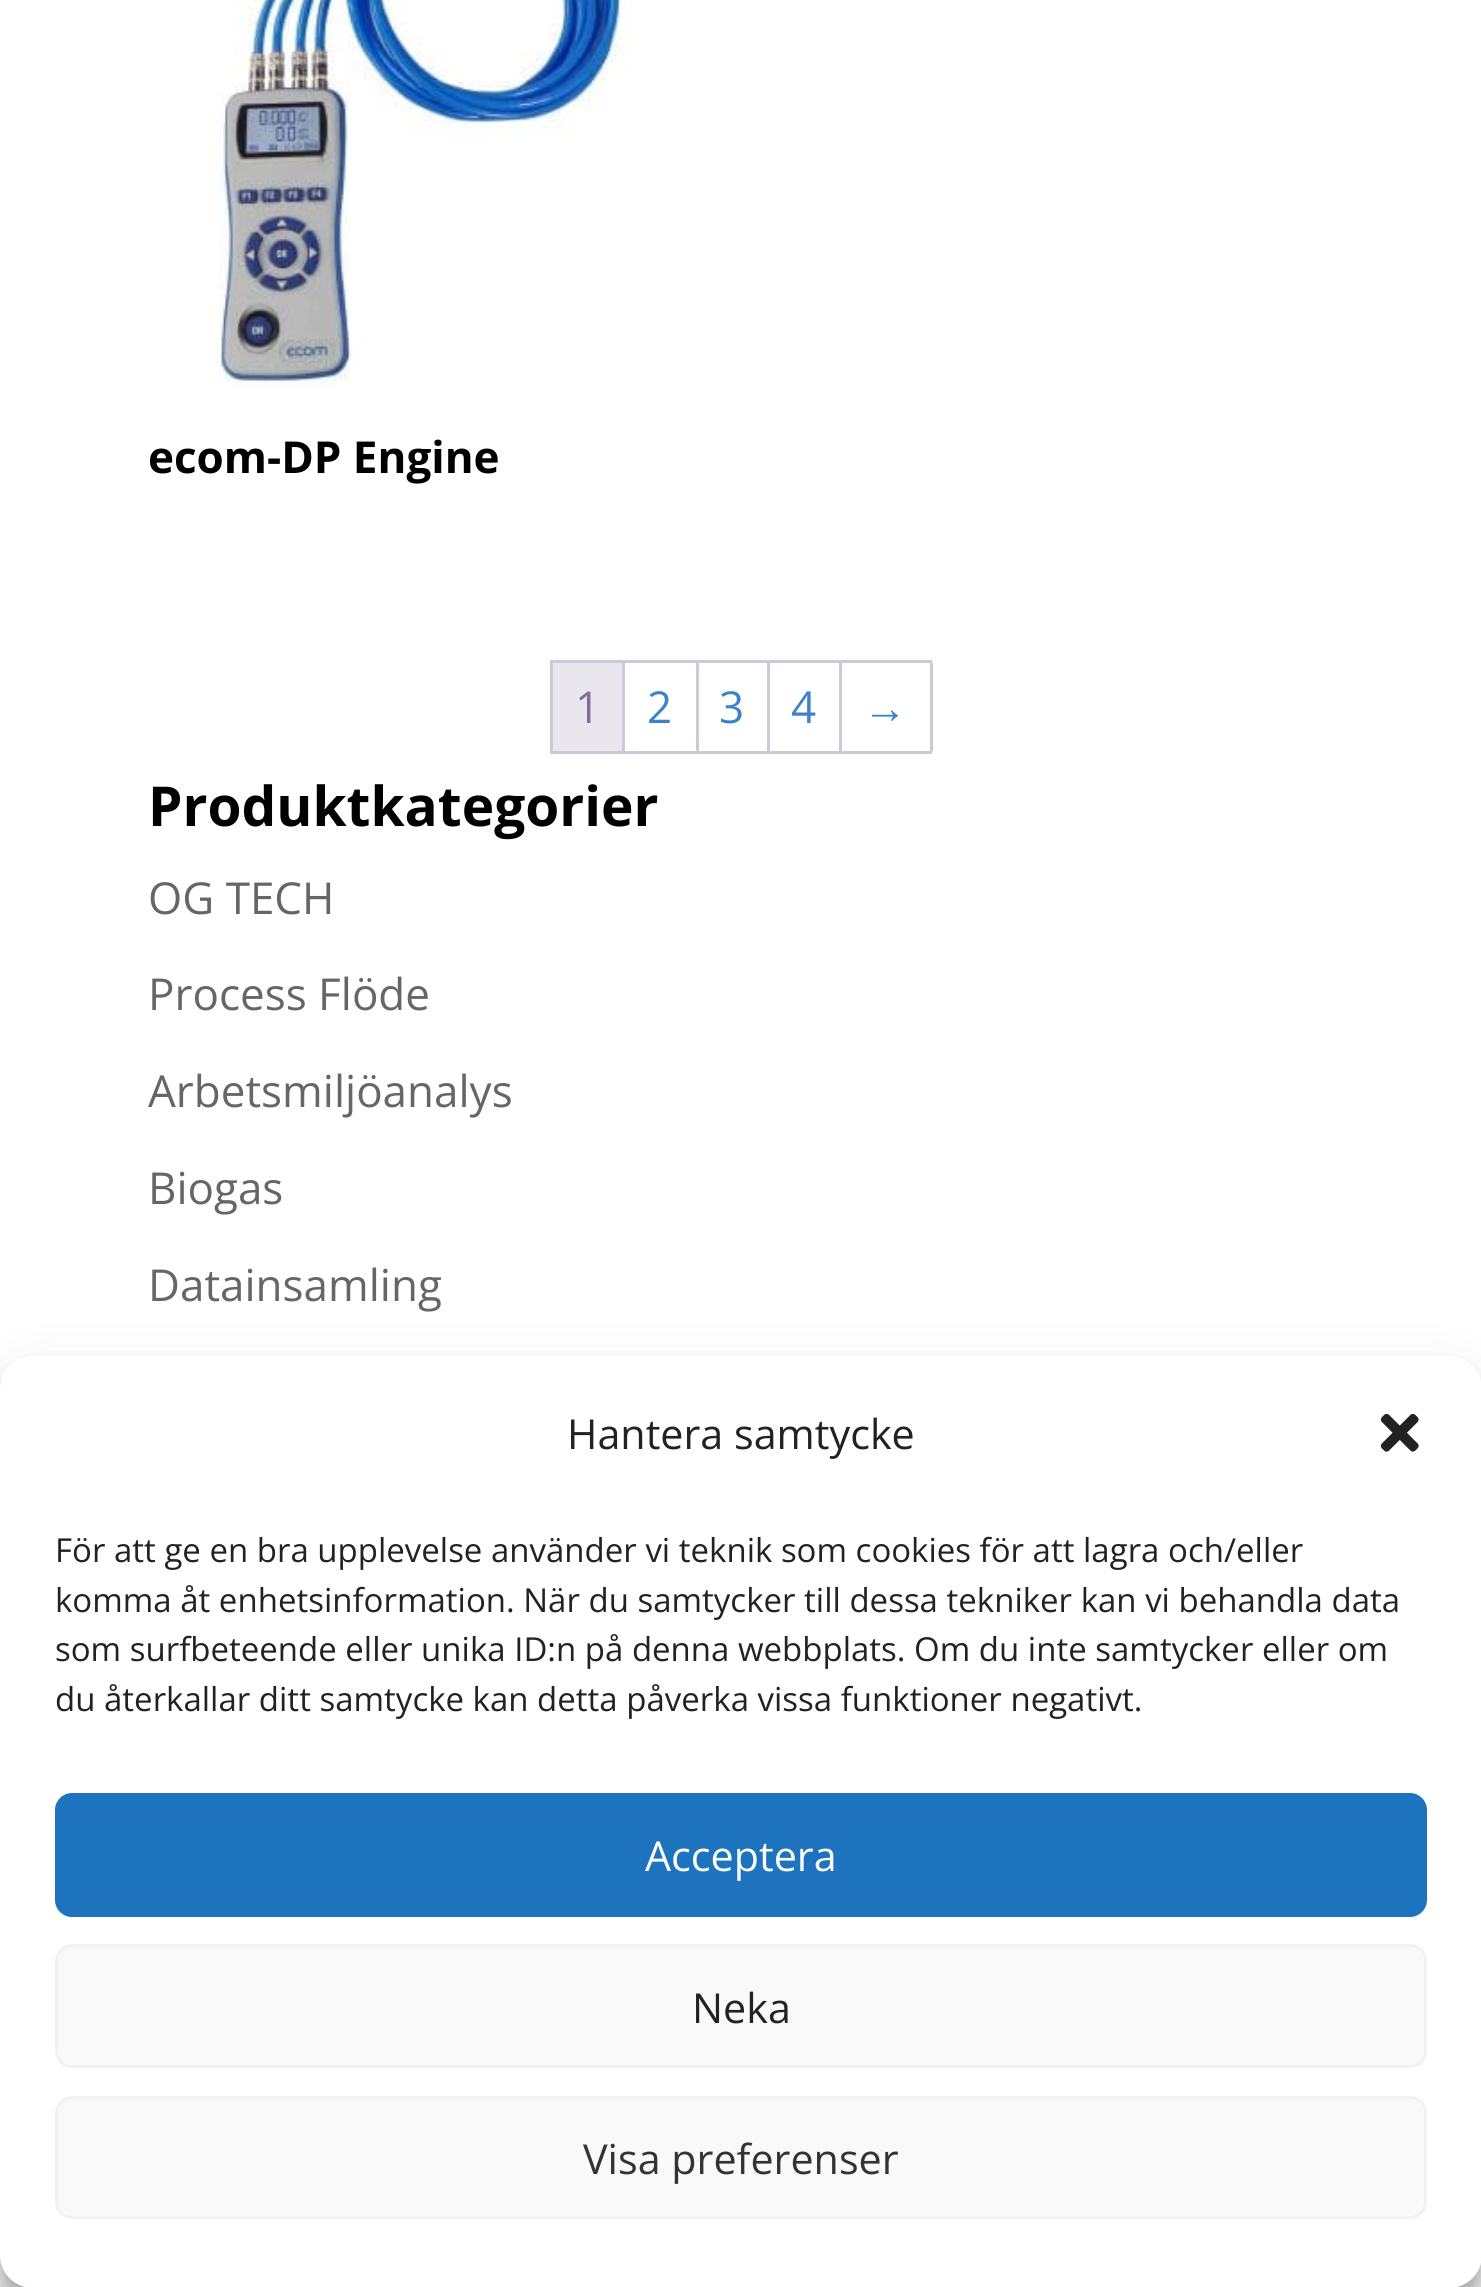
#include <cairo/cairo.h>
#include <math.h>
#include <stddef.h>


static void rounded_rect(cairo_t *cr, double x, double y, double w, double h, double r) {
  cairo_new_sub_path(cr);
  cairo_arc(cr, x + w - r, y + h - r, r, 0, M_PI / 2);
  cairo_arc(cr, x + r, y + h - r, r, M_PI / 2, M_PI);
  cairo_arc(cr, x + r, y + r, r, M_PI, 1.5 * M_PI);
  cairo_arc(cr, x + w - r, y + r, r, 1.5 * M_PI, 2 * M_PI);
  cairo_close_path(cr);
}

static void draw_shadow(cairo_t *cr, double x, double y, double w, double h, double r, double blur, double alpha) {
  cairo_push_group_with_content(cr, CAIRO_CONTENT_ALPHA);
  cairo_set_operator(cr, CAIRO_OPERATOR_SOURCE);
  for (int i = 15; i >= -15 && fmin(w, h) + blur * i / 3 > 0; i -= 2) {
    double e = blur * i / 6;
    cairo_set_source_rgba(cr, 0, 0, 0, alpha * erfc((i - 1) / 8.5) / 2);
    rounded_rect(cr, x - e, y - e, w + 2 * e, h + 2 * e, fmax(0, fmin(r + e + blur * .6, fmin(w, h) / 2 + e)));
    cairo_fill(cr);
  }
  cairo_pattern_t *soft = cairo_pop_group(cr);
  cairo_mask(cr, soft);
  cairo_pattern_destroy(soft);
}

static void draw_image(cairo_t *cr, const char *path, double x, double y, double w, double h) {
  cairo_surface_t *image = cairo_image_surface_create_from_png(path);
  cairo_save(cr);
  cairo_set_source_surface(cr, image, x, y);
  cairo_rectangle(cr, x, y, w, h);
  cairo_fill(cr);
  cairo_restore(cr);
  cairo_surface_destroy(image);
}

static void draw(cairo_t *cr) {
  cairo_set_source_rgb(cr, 1, 1, 1);
  cairo_paint(cr);
  draw_image(cr, "images/1.png", 207, 0, 427, 388);
  cairo_set_source_rgb(cr, 207 / 255.0, 200 / 255.0, 216 / 255.0);
  cairo_rectangle(cr, 550, 660, 382, 3);
  cairo_fill(cr);
  cairo_rectangle(cr, 550, 751, 382, 3);
  cairo_fill(cr);
  cairo_rectangle(cr, 550, 660, 3, 94);
  cairo_fill(cr);
  cairo_rectangle(cr, 622, 663, 3, 88);
  cairo_fill(cr);
  cairo_set_source_rgb(cr, 233 / 255.0, 230 / 255.0, 237 / 255.0);
  cairo_rectangle(cr, 553, 663, 69, 88);
  cairo_fill(cr);
  cairo_set_source_rgb(cr, 207 / 255.0, 200 / 255.0, 216 / 255.0);
  cairo_rectangle(cr, 696, 663, 3, 88);
  cairo_fill(cr);
  cairo_rectangle(cr, 767, 663, 3, 88);
  cairo_fill(cr);
  cairo_rectangle(cr, 839, 663, 3, 88);
  cairo_fill(cr);
  cairo_rectangle(cr, 930, 663, 3, 88);
  cairo_fill(cr);
  cairo_set_source_rgb(cr, 0, 0, 0);
  draw_shadow(cr, 0, 1372, 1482, 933, 33, 8, 0.23);
  draw_shadow(cr, 0, 1383, 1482, 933, 33, 27.5, 0.19);
  cairo_set_source_rgb(cr, 1, 1, 1);
  rounded_rect(cr, 0, 1356, 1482, 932, 33);
  cairo_fill(cr);
  draw_image(cr, "images/2.png", 1380, 1413, 39, 39);
  cairo_set_source_rgb(cr, 30 / 255.0, 115 / 255.0, 190 / 255.0);
  rounded_rect(cr, 56.5, 1794.5, 1369, 121, 15.5);
  cairo_fill_preserve(cr);
  cairo_set_line_width(cr, 3);
  cairo_stroke(cr);
  cairo_set_source_rgb(cr, 249 / 255.0, 249 / 255.0, 249 / 255.0);
  rounded_rect(cr, 56.5, 1945.5, 1369, 121, 15.5);
  cairo_fill_preserve(cr);
  cairo_set_source_rgb(cr, 242 / 255.0, 242 / 255.0, 242 / 255.0);
  cairo_stroke(cr);
  cairo_set_source_rgb(cr, 249 / 255.0, 249 / 255.0, 249 / 255.0);
  rounded_rect(cr, 56.5, 2097.5, 1369, 120, 15.5);
  cairo_fill_preserve(cr);
  cairo_set_source_rgb(cr, 242 / 255.0, 242 / 255.0, 242 / 255.0);
  cairo_stroke(cr);
  cairo_select_font_face(cr, "Open Sans", CAIRO_FONT_SLANT_NORMAL, CAIRO_FONT_WEIGHT_BOLD);
  cairo_set_font_size(cr, 44);
  cairo_set_source_rgb(cr, 0, 0, 0);
  cairo_move_to(cr, 148, 473);
  cairo_show_text(cr, "ecom-DP Engine");
  cairo_select_font_face(cr, "Open Sans", CAIRO_FONT_SLANT_NORMAL, CAIRO_FONT_WEIGHT_NORMAL);
  cairo_set_source_rgb(cr, 129 / 255.0, 111 / 255.0, 152 / 255.0);
  cairo_move_to(cr, 575, 723);
  cairo_show_text(cr, "1");
  cairo_set_source_rgb(cr, 61 / 255.0, 130 / 255.0, 201 / 255.0);
  cairo_move_to(cr, 647, 723);
  cairo_show_text(cr, "2");
  cairo_move_to(cr, 719, 723);
  cairo_show_text(cr, "3");
  cairo_move_to(cr, 791, 723);
  cairo_show_text(cr, "4");
  cairo_select_font_face(cr, "Liberation Sans", CAIRO_FONT_SLANT_NORMAL, CAIRO_FONT_WEIGHT_NORMAL);
  cairo_move_to(cr, 863, 723);
  cairo_show_text(cr, "→");
  cairo_select_font_face(cr, "Open Sans", CAIRO_FONT_SLANT_NORMAL, CAIRO_FONT_WEIGHT_BOLD);
  cairo_set_font_size(cr, 55);
  cairo_set_source_rgb(cr, 0, 0, 0);
  cairo_move_to(cr, 148, 826);
  cairo_show_text(cr, "Produktkategorier");
  cairo_select_font_face(cr, "Open Sans", CAIRO_FONT_SLANT_NORMAL, CAIRO_FONT_WEIGHT_NORMAL);
  cairo_set_font_size(cr, 44);
  cairo_set_source_rgb(cr, 102 / 255.0, 102 / 255.0, 102 / 255.0);
  cairo_move_to(cr, 148, 914);
  cairo_show_text(cr, "OG TECH");
  cairo_move_to(cr, 148, 1010);
  cairo_show_text(cr, "Process Flöde");
  cairo_move_to(cr, 148, 1107);
  cairo_show_text(cr, "Arbetsmiljöanalys");
  cairo_move_to(cr, 148, 1204);
  cairo_show_text(cr, "Biogas");
  cairo_move_to(cr, 148, 1301);
  cairo_show_text(cr, "Datainsamling");
  cairo_set_font_size(cr, 41.25);
  cairo_set_source_rgb(cr, 34 / 255.0, 34 / 255.0, 34 / 255.0);
  cairo_move_to(cr, 567, 1449);
  cairo_show_text(cr, "Hantera samtycke");
  cairo_set_font_size(cr, 33);
  cairo_move_to(cr, 55, 1562);
  cairo_show_text(cr, "För att ge en bra upplevelse använder vi teknik som cookies för att lagra och/eller");
  cairo_move_to(cr, 55, 1612);
  cairo_show_text(cr, "komma åt enhetsinformation. När du samtycker till dessa tekniker kan vi behandla data");
  cairo_move_to(cr, 55, 1661);
  cairo_show_text(cr, "som surfbeteende eller unika ID:n på denna webbplats. Om du inte samtycker eller om");
  cairo_move_to(cr, 55, 1711);
  cairo_show_text(cr, "du återkallar ditt samtycke kan detta påverka vissa funktioner negativt.");
  cairo_set_font_size(cr, 41.25);
  cairo_set_source_rgb(cr, 1, 1, 1);
  cairo_move_to(cr, 645, 1871);
  cairo_show_text(cr, "Acceptera");
  cairo_set_source_rgb(cr, 34 / 255.0, 34 / 255.0, 34 / 255.0);
  cairo_move_to(cr, 692, 2023);
  cairo_show_text(cr, "Neka");
  cairo_set_source_rgb(cr, 51 / 255.0, 51 / 255.0, 51 / 255.0);
  cairo_move_to(cr, 583, 2174);
  cairo_show_text(cr, "Visa preferenser");
}

int main(void) {
  cairo_surface_t *surface = cairo_image_surface_create(CAIRO_FORMAT_RGB24, 1481, 2287);
  cairo_t *cr = cairo_create(surface);
  cairo_font_options_t *options = cairo_font_options_create();
  cairo_font_options_set_hint_metrics(options, CAIRO_HINT_METRICS_OFF);
  cairo_font_options_set_hint_style(options, CAIRO_HINT_STYLE_NONE);
  cairo_set_font_options(cr, options);
  cairo_set_miter_limit(cr, 4);
  draw(cr);
  cairo_surface_write_to_png(surface, "out.png");
  cairo_font_options_destroy(options);
  cairo_destroy(cr);
  cairo_surface_destroy(surface);
  return 0;
}
